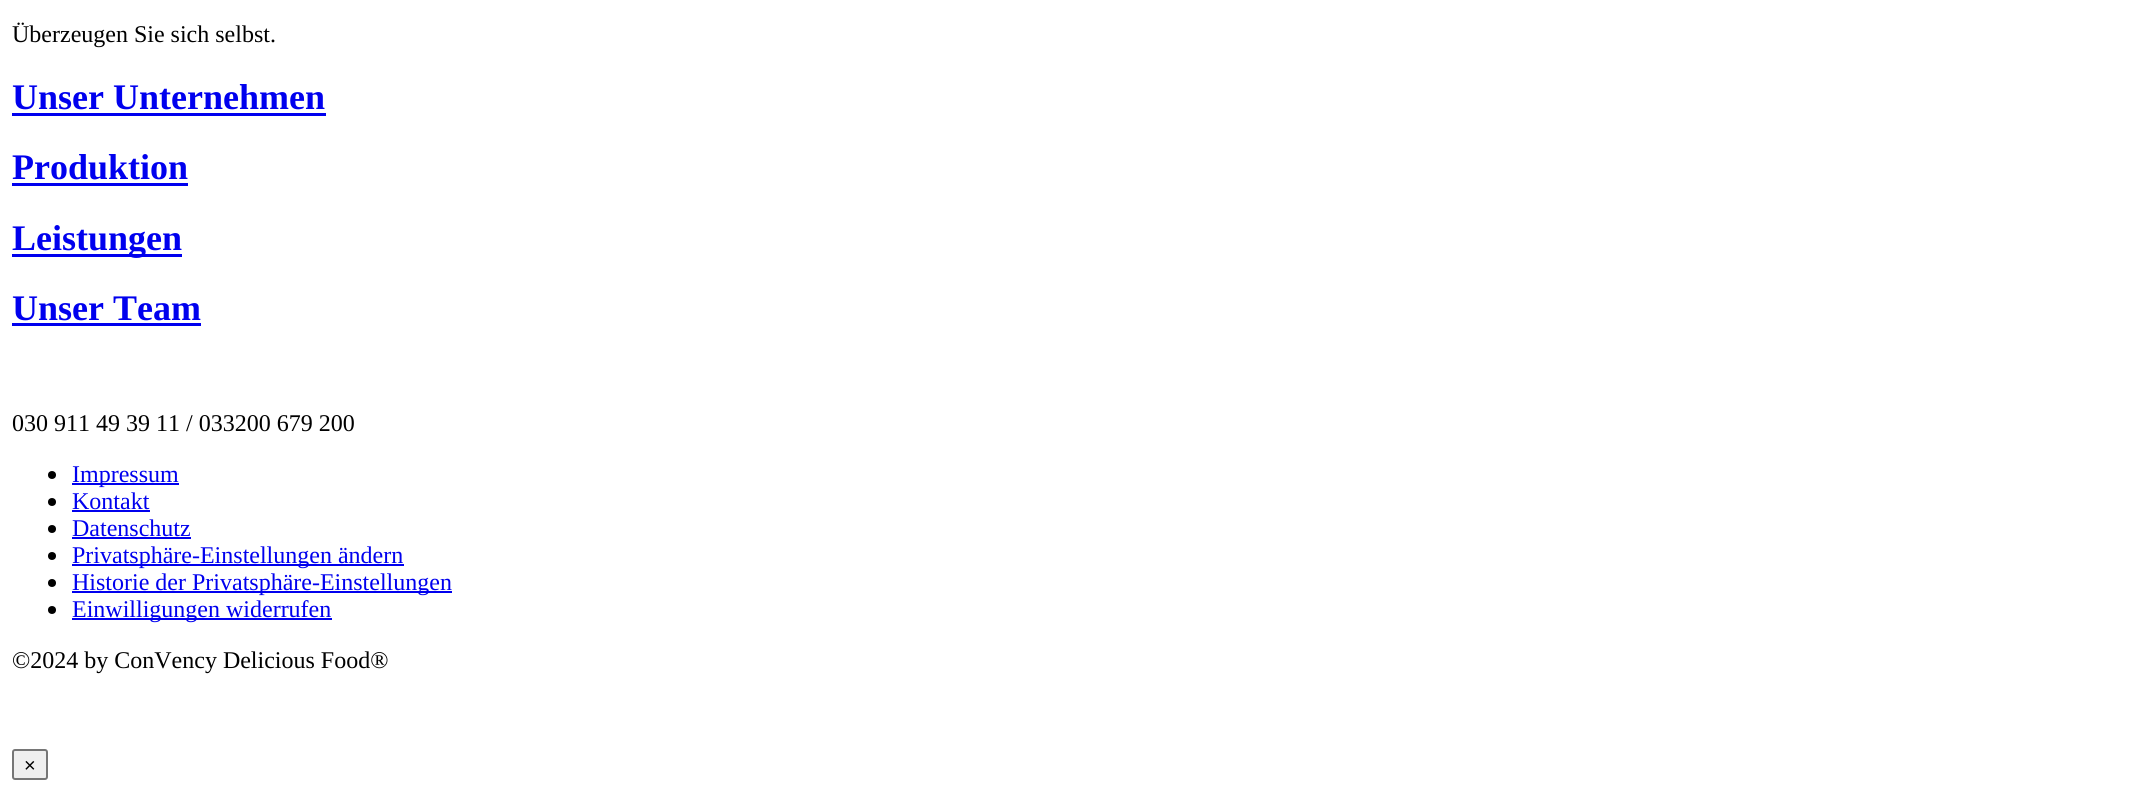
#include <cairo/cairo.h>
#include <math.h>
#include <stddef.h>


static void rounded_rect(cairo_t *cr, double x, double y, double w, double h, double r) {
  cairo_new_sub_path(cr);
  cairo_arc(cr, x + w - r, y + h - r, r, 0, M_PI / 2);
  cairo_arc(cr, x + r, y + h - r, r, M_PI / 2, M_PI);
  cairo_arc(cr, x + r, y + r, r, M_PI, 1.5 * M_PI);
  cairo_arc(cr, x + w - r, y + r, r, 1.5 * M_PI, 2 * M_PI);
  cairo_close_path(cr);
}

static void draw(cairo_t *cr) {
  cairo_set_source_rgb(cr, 1, 1, 1);
  cairo_paint(cr);
  cairo_set_source_rgb(cr, 0, 0, 238 / 255.0);
  cairo_rectangle(cr, 12, 113, 314, 3);
  cairo_fill(cr);
  cairo_rectangle(cr, 12, 183, 176, 3);
  cairo_fill(cr);
  cairo_rectangle(cr, 12, 254, 170, 3);
  cairo_fill(cr);
  cairo_rectangle(cr, 12, 323, 189, 3);
  cairo_fill(cr);
  cairo_set_source_rgb(cr, 0, 0, 0);
  cairo_arc(cr, 52, 475, 4, 0, 2 * M_PI);
  cairo_fill(cr);
  cairo_set_source_rgb(cr, 0, 0, 238 / 255.0);
  cairo_rectangle(cr, 72, 483, 107, 2);
  cairo_fill(cr);
  cairo_set_source_rgb(cr, 0, 0, 0);
  cairo_arc(cr, 52, 502, 4, 0, 2 * M_PI);
  cairo_fill(cr);
  cairo_set_source_rgb(cr, 0, 0, 238 / 255.0);
  cairo_rectangle(cr, 72, 510, 78, 2);
  cairo_fill(cr);
  cairo_set_source_rgb(cr, 0, 0, 0);
  cairo_arc(cr, 52, 529, 4, 0, 2 * M_PI);
  cairo_fill(cr);
  cairo_set_source_rgb(cr, 0, 0, 238 / 255.0);
  cairo_rectangle(cr, 72, 537, 119, 2);
  cairo_fill(cr);
  cairo_set_source_rgb(cr, 0, 0, 0);
  cairo_arc(cr, 52, 556, 4, 0, 2 * M_PI);
  cairo_fill(cr);
  cairo_set_source_rgb(cr, 0, 0, 238 / 255.0);
  cairo_rectangle(cr, 72, 564, 332, 2);
  cairo_fill(cr);
  cairo_set_source_rgb(cr, 0, 0, 0);
  cairo_arc(cr, 52, 583, 4, 0, 2 * M_PI);
  cairo_fill(cr);
  cairo_set_source_rgb(cr, 0, 0, 238 / 255.0);
  cairo_rectangle(cr, 72, 591, 380, 2);
  cairo_fill(cr);
  cairo_set_source_rgb(cr, 0, 0, 0);
  cairo_arc(cr, 52, 610, 4, 0, 2 * M_PI);
  cairo_fill(cr);
  cairo_set_source_rgb(cr, 0, 0, 238 / 255.0);
  cairo_rectangle(cr, 72, 618, 260, 2);
  cairo_fill(cr);
  cairo_set_source_rgb(cr, 239 / 255.0, 239 / 255.0, 239 / 255.0);
  rounded_rect(cr, 13, 750, 34, 29, 2);
  cairo_fill_preserve(cr);
  cairo_set_source_rgb(cr, 118 / 255.0, 118 / 255.0, 118 / 255.0);
  cairo_stroke(cr);
  cairo_select_font_face(cr, "Liberation Serif", CAIRO_FONT_SLANT_NORMAL, CAIRO_FONT_WEIGHT_NORMAL);
  cairo_set_font_size(cr, 24);
  cairo_set_source_rgb(cr, 0, 0, 0);
  cairo_move_to(cr, 12, 42);
  cairo_show_text(cr, "Überzeugen Sie sich selbst.");
  cairo_select_font_face(cr, "Liberation Serif", CAIRO_FONT_SLANT_NORMAL, CAIRO_FONT_WEIGHT_BOLD);
  cairo_set_font_size(cr, 36);
  cairo_set_source_rgb(cr, 0, 0, 238 / 255.0);
  cairo_move_to(cr, 12, 109);
  cairo_show_text(cr, "Unser Unternehmen");
  cairo_move_to(cr, 12, 179);
  cairo_show_text(cr, "Produktion");
  cairo_move_to(cr, 12, 250);
  cairo_show_text(cr, "Leistungen");
  cairo_move_to(cr, 12, 320);
  cairo_show_text(cr, "Unser Team");
  cairo_select_font_face(cr, "Liberation Serif", CAIRO_FONT_SLANT_NORMAL, CAIRO_FONT_WEIGHT_NORMAL);
  cairo_set_font_size(cr, 24);
  cairo_set_source_rgb(cr, 0, 0, 0);
  cairo_move_to(cr, 12, 431);
  cairo_show_text(cr, "030 911 49 39 11 / 033200 679 200");
  cairo_set_source_rgb(cr, 0, 0, 238 / 255.0);
  cairo_move_to(cr, 72, 482);
  cairo_show_text(cr, "Impressum");
  cairo_move_to(cr, 72, 509);
  cairo_show_text(cr, "Kontakt");
  cairo_move_to(cr, 72, 536);
  cairo_show_text(cr, "Datenschutz");
  cairo_move_to(cr, 72, 563);
  cairo_show_text(cr, "Privatsphäre-Einstellungen ändern");
  cairo_move_to(cr, 72, 590);
  cairo_show_text(cr, "Historie der Privatsphäre-Einstellungen");
  cairo_move_to(cr, 72, 617);
  cairo_show_text(cr, "Einwilligungen widerrufen");
  cairo_set_source_rgb(cr, 0, 0, 0);
  cairo_move_to(cr, 12, 668);
  cairo_show_text(cr, "©2024 by ConVency Delicious Food®");
  cairo_select_font_face(cr, "Liberation Sans", CAIRO_FONT_SLANT_NORMAL, CAIRO_FONT_WEIGHT_NORMAL);
  cairo_set_font_size(cr, 20);
  cairo_move_to(cr, 24, 772);
  cairo_show_text(cr, "×");
}

int main(void) {
  cairo_surface_t *surface = cairo_image_surface_create(CAIRO_FORMAT_RGB24, 2135, 792);
  cairo_t *cr = cairo_create(surface);
  cairo_font_options_t *options = cairo_font_options_create();
  cairo_font_options_set_hint_metrics(options, CAIRO_HINT_METRICS_OFF);
  cairo_font_options_set_hint_style(options, CAIRO_HINT_STYLE_NONE);
  cairo_set_font_options(cr, options);
  cairo_set_miter_limit(cr, 4);
  draw(cr);
  cairo_surface_write_to_png(surface, "out.png");
  cairo_font_options_destroy(options);
  cairo_destroy(cr);
  cairo_surface_destroy(surface);
  return 0;
}
